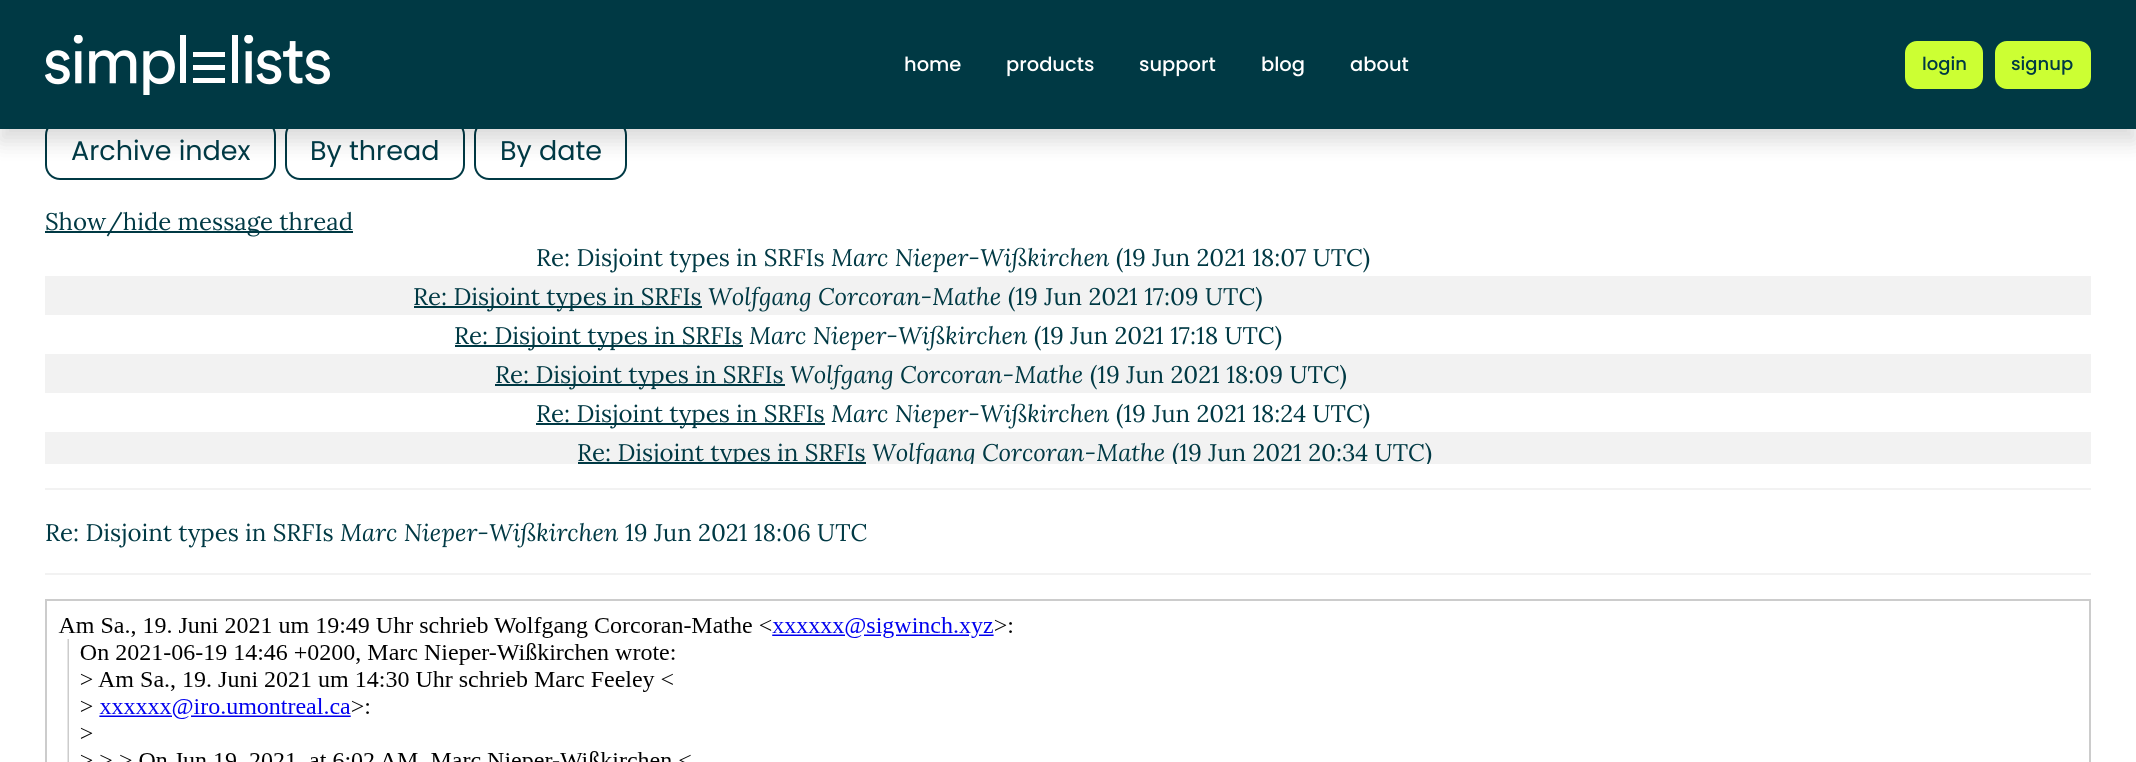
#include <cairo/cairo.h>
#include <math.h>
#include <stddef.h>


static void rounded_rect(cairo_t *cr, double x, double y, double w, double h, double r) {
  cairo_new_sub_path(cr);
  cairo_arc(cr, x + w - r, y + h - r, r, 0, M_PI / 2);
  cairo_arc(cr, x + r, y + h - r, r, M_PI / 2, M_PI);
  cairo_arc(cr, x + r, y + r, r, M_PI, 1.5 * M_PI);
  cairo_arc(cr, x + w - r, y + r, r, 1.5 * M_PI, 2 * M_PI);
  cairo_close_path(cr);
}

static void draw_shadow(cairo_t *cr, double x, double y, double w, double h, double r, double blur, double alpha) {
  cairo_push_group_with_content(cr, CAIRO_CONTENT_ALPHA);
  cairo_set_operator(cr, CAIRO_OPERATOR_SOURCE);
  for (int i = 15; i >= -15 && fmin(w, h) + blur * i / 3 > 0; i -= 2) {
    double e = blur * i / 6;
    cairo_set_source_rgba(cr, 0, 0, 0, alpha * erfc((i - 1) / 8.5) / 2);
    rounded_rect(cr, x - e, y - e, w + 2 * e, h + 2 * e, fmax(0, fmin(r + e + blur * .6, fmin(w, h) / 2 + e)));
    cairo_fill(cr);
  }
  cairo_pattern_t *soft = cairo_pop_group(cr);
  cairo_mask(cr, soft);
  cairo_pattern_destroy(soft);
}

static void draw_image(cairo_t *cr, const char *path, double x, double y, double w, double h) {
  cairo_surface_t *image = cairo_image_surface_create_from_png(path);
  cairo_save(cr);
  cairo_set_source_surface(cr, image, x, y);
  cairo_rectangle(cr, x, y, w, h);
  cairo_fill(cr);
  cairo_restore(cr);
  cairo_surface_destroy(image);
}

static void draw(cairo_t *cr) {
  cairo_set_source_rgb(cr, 1, 1, 1);
  cairo_paint(cr);
  rounded_rect(cr, 46, 121, 229, 58, 14);
  cairo_set_source_rgb(cr, 0, 57 / 255.0, 68 / 255.0);
  cairo_stroke(cr);
  rounded_rect(cr, 286, 121, 178, 58, 14);
  cairo_stroke(cr);
  rounded_rect(cr, 475, 121, 151, 58, 14);
  cairo_stroke(cr);
  cairo_set_source_rgb(cr, 0, 0, 0);
  draw_shadow(cr, 0, 12, 2136, 129, 0, 11, 0.15);
  cairo_set_source_rgb(cr, 0, 57 / 255.0, 68 / 255.0);
  cairo_rectangle(cr, 0, 0, 2136, 129);
  cairo_fill(cr);
  draw_image(cr, "images/1.png", 45, 35, 285, 60);
  cairo_set_source_rgb(cr, 204 / 255.0, 1, 51 / 255.0);
  rounded_rect(cr, 1906, 42, 76, 46, 11);
  cairo_fill_preserve(cr);
  cairo_stroke(cr);
  rounded_rect(cr, 1996, 42, 94, 46, 11);
  cairo_fill_preserve(cr);
  cairo_stroke(cr);
  cairo_set_source_rgb(cr, 0, 57 / 255.0, 68 / 255.0);
  cairo_rectangle(cr, 45, 231, 308, 2);
  cairo_fill(cr);
  cairo_set_source_rgb(cr, 242 / 255.0, 242 / 255.0, 242 / 255.0);
  cairo_rectangle(cr, 45, 276, 2046, 39);
  cairo_fill(cr);
  cairo_set_source_rgb(cr, 0, 57 / 255.0, 68 / 255.0);
  cairo_rectangle(cr, 414, 306, 288, 2);
  cairo_fill(cr);
  cairo_rectangle(cr, 455, 345, 288, 2);
  cairo_fill(cr);
  cairo_set_source_rgb(cr, 242 / 255.0, 242 / 255.0, 242 / 255.0);
  cairo_rectangle(cr, 45, 354, 2046, 39);
  cairo_fill(cr);
  cairo_set_source_rgb(cr, 0, 57 / 255.0, 68 / 255.0);
  cairo_rectangle(cr, 495, 384, 290, 2);
  cairo_fill(cr);
  cairo_rectangle(cr, 536, 423, 289, 2);
  cairo_fill(cr);
  cairo_set_source_rgb(cr, 242 / 255.0, 242 / 255.0, 242 / 255.0);
  cairo_rectangle(cr, 45, 432, 2046, 32);
  cairo_fill(cr);
  cairo_set_source_rgb(cr, 0, 57 / 255.0, 68 / 255.0);
  cairo_rectangle(cr, 578, 462, 288, 2);
  cairo_fill(cr);
  cairo_set_source_rgb(cr, 242 / 255.0, 242 / 255.0, 242 / 255.0);
  cairo_rectangle(cr, 45, 488, 2046, 2);
  cairo_fill(cr);
  cairo_rectangle(cr, 45, 573, 2046, 2);
  cairo_fill(cr);
  cairo_rectangle(cr, 46, 600, 2044, 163);
  cairo_set_source_rgb(cr, 204 / 255.0, 204 / 255.0, 204 / 255.0);
  cairo_stroke(cr);
  draw_image(cr, "images/2.png", 58, 617, 954, 145);
  cairo_select_font_face(cr, "Poppins Medium", CAIRO_FONT_SLANT_NORMAL, CAIRO_FONT_WEIGHT_NORMAL);
  cairo_set_font_size(cr, 19.5);
  cairo_set_source_rgb(cr, 1, 1, 1);
  cairo_move_to(cr, 904, 71);
  cairo_show_text(cr, "home");
  cairo_move_to(cr, 1006, 71);
  cairo_show_text(cr, "products");
  cairo_move_to(cr, 1139, 71);
  cairo_show_text(cr, "support");
  cairo_move_to(cr, 1261, 71);
  cairo_show_text(cr, "blog");
  cairo_move_to(cr, 1350, 71);
  cairo_show_text(cr, "about");
  cairo_set_font_size(cr, 18);
  cairo_set_source_rgb(cr, 0, 57 / 255.0, 68 / 255.0);
  cairo_move_to(cr, 1922, 70);
  cairo_show_text(cr, "login");
  cairo_move_to(cr, 2011, 70);
  cairo_show_text(cr, "signup");
  cairo_select_font_face(cr, "Poppins", CAIRO_FONT_SLANT_NORMAL, CAIRO_FONT_WEIGHT_NORMAL);
  cairo_set_font_size(cr, 27);
  cairo_move_to(cr, 71, 160);
  cairo_show_text(cr, "Archive index");
  cairo_move_to(cr, 310, 160);
  cairo_show_text(cr, "By thread");
  cairo_move_to(cr, 500, 160);
  cairo_show_text(cr, "By date");
  cairo_select_font_face(cr, "Lora", CAIRO_FONT_SLANT_NORMAL, CAIRO_FONT_WEIGHT_NORMAL);
  cairo_set_font_size(cr, 24);
  cairo_move_to(cr, 45, 230);
  cairo_show_text(cr, "Show/hide message thread");
  cairo_move_to(cr, 536, 266);
  cairo_show_text(cr, "Re: Disjoint types in SRFIs");
  cairo_select_font_face(cr, "Lora", CAIRO_FONT_SLANT_ITALIC, CAIRO_FONT_WEIGHT_NORMAL);
  cairo_move_to(cr, 831, 266);
  cairo_show_text(cr, "Marc Nieper-Wißkirchen");
  cairo_select_font_face(cr, "Lora", CAIRO_FONT_SLANT_NORMAL, CAIRO_FONT_WEIGHT_NORMAL);
  cairo_move_to(cr, 1116, 266);
  cairo_show_text(cr, "(19 Jun 2021 18:07 UTC)");
  cairo_move_to(cr, 413, 305);
  cairo_show_text(cr, "Re: Disjoint types in SRFIs");
  cairo_select_font_face(cr, "Lora", CAIRO_FONT_SLANT_ITALIC, CAIRO_FONT_WEIGHT_NORMAL);
  cairo_move_to(cr, 708, 305);
  cairo_show_text(cr, "Wolfgang Corcoran-Mathe");
  cairo_select_font_face(cr, "Lora", CAIRO_FONT_SLANT_NORMAL, CAIRO_FONT_WEIGHT_NORMAL);
  cairo_move_to(cr, 1008, 305);
  cairo_show_text(cr, "(19 Jun 2021 17:09 UTC)");
  cairo_move_to(cr, 454, 344);
  cairo_show_text(cr, "Re: Disjoint types in SRFIs");
  cairo_select_font_face(cr, "Lora", CAIRO_FONT_SLANT_ITALIC, CAIRO_FONT_WEIGHT_NORMAL);
  cairo_move_to(cr, 749, 344);
  cairo_show_text(cr, "Marc Nieper-Wißkirchen");
  cairo_select_font_face(cr, "Lora", CAIRO_FONT_SLANT_NORMAL, CAIRO_FONT_WEIGHT_NORMAL);
  cairo_move_to(cr, 1034, 344);
  cairo_show_text(cr, "(19 Jun 2021 17:18 UTC)");
  cairo_move_to(cr, 495, 383);
  cairo_show_text(cr, "Re: Disjoint types in SRFIs");
  cairo_select_font_face(cr, "Lora", CAIRO_FONT_SLANT_ITALIC, CAIRO_FONT_WEIGHT_NORMAL);
  cairo_move_to(cr, 790, 383);
  cairo_show_text(cr, "Wolfgang Corcoran-Mathe");
  cairo_select_font_face(cr, "Lora", CAIRO_FONT_SLANT_NORMAL, CAIRO_FONT_WEIGHT_NORMAL);
  cairo_move_to(cr, 1090, 383);
  cairo_show_text(cr, "(19 Jun 2021 18:09 UTC)");
  cairo_move_to(cr, 536, 422);
  cairo_show_text(cr, "Re: Disjoint types in SRFIs");
  cairo_select_font_face(cr, "Lora", CAIRO_FONT_SLANT_ITALIC, CAIRO_FONT_WEIGHT_NORMAL);
  cairo_move_to(cr, 831, 422);
  cairo_show_text(cr, "Marc Nieper-Wißkirchen");
  cairo_select_font_face(cr, "Lora", CAIRO_FONT_SLANT_NORMAL, CAIRO_FONT_WEIGHT_NORMAL);
  cairo_move_to(cr, 1116, 422);
  cairo_show_text(cr, "(19 Jun 2021 18:24 UTC)");
  cairo_save(cr);
  cairo_rectangle(cr, 578, 434, 1512, 30);
  cairo_clip(cr);
  cairo_move_to(cr, 577, 461);
  cairo_show_text(cr, "Re: Disjoint types in SRFIs");
  cairo_select_font_face(cr, "Lora", CAIRO_FONT_SLANT_ITALIC, CAIRO_FONT_WEIGHT_NORMAL);
  cairo_move_to(cr, 872, 461);
  cairo_show_text(cr, "Wolfgang Corcoran-Mathe");
  cairo_select_font_face(cr, "Lora", CAIRO_FONT_SLANT_NORMAL, CAIRO_FONT_WEIGHT_NORMAL);
  cairo_move_to(cr, 1172, 461);
  cairo_show_text(cr, "(19 Jun 2021 20:34 UTC)");
  cairo_restore(cr);
  cairo_move_to(cr, 45, 541);
  cairo_show_text(cr, "Re: Disjoint types in SRFIs");
  cairo_select_font_face(cr, "Lora", CAIRO_FONT_SLANT_ITALIC, CAIRO_FONT_WEIGHT_NORMAL);
  cairo_move_to(cr, 340, 541);
  cairo_show_text(cr, "Marc Nieper-Wißkirchen");
  cairo_select_font_face(cr, "Lora", CAIRO_FONT_SLANT_NORMAL, CAIRO_FONT_WEIGHT_NORMAL);
  cairo_move_to(cr, 625, 541);
  cairo_show_text(cr, "19 Jun 2021 18:06 UTC");
}

int main(void) {
  cairo_surface_t *surface = cairo_image_surface_create(CAIRO_FORMAT_RGB24, 2136, 762);
  cairo_t *cr = cairo_create(surface);
  cairo_font_options_t *options = cairo_font_options_create();
  cairo_font_options_set_hint_metrics(options, CAIRO_HINT_METRICS_OFF);
  cairo_font_options_set_hint_style(options, CAIRO_HINT_STYLE_NONE);
  cairo_set_font_options(cr, options);
  cairo_set_miter_limit(cr, 4);
  draw(cr);
  cairo_surface_write_to_png(surface, "out.png");
  cairo_font_options_destroy(options);
  cairo_destroy(cr);
  cairo_surface_destroy(surface);
  return 0;
}
